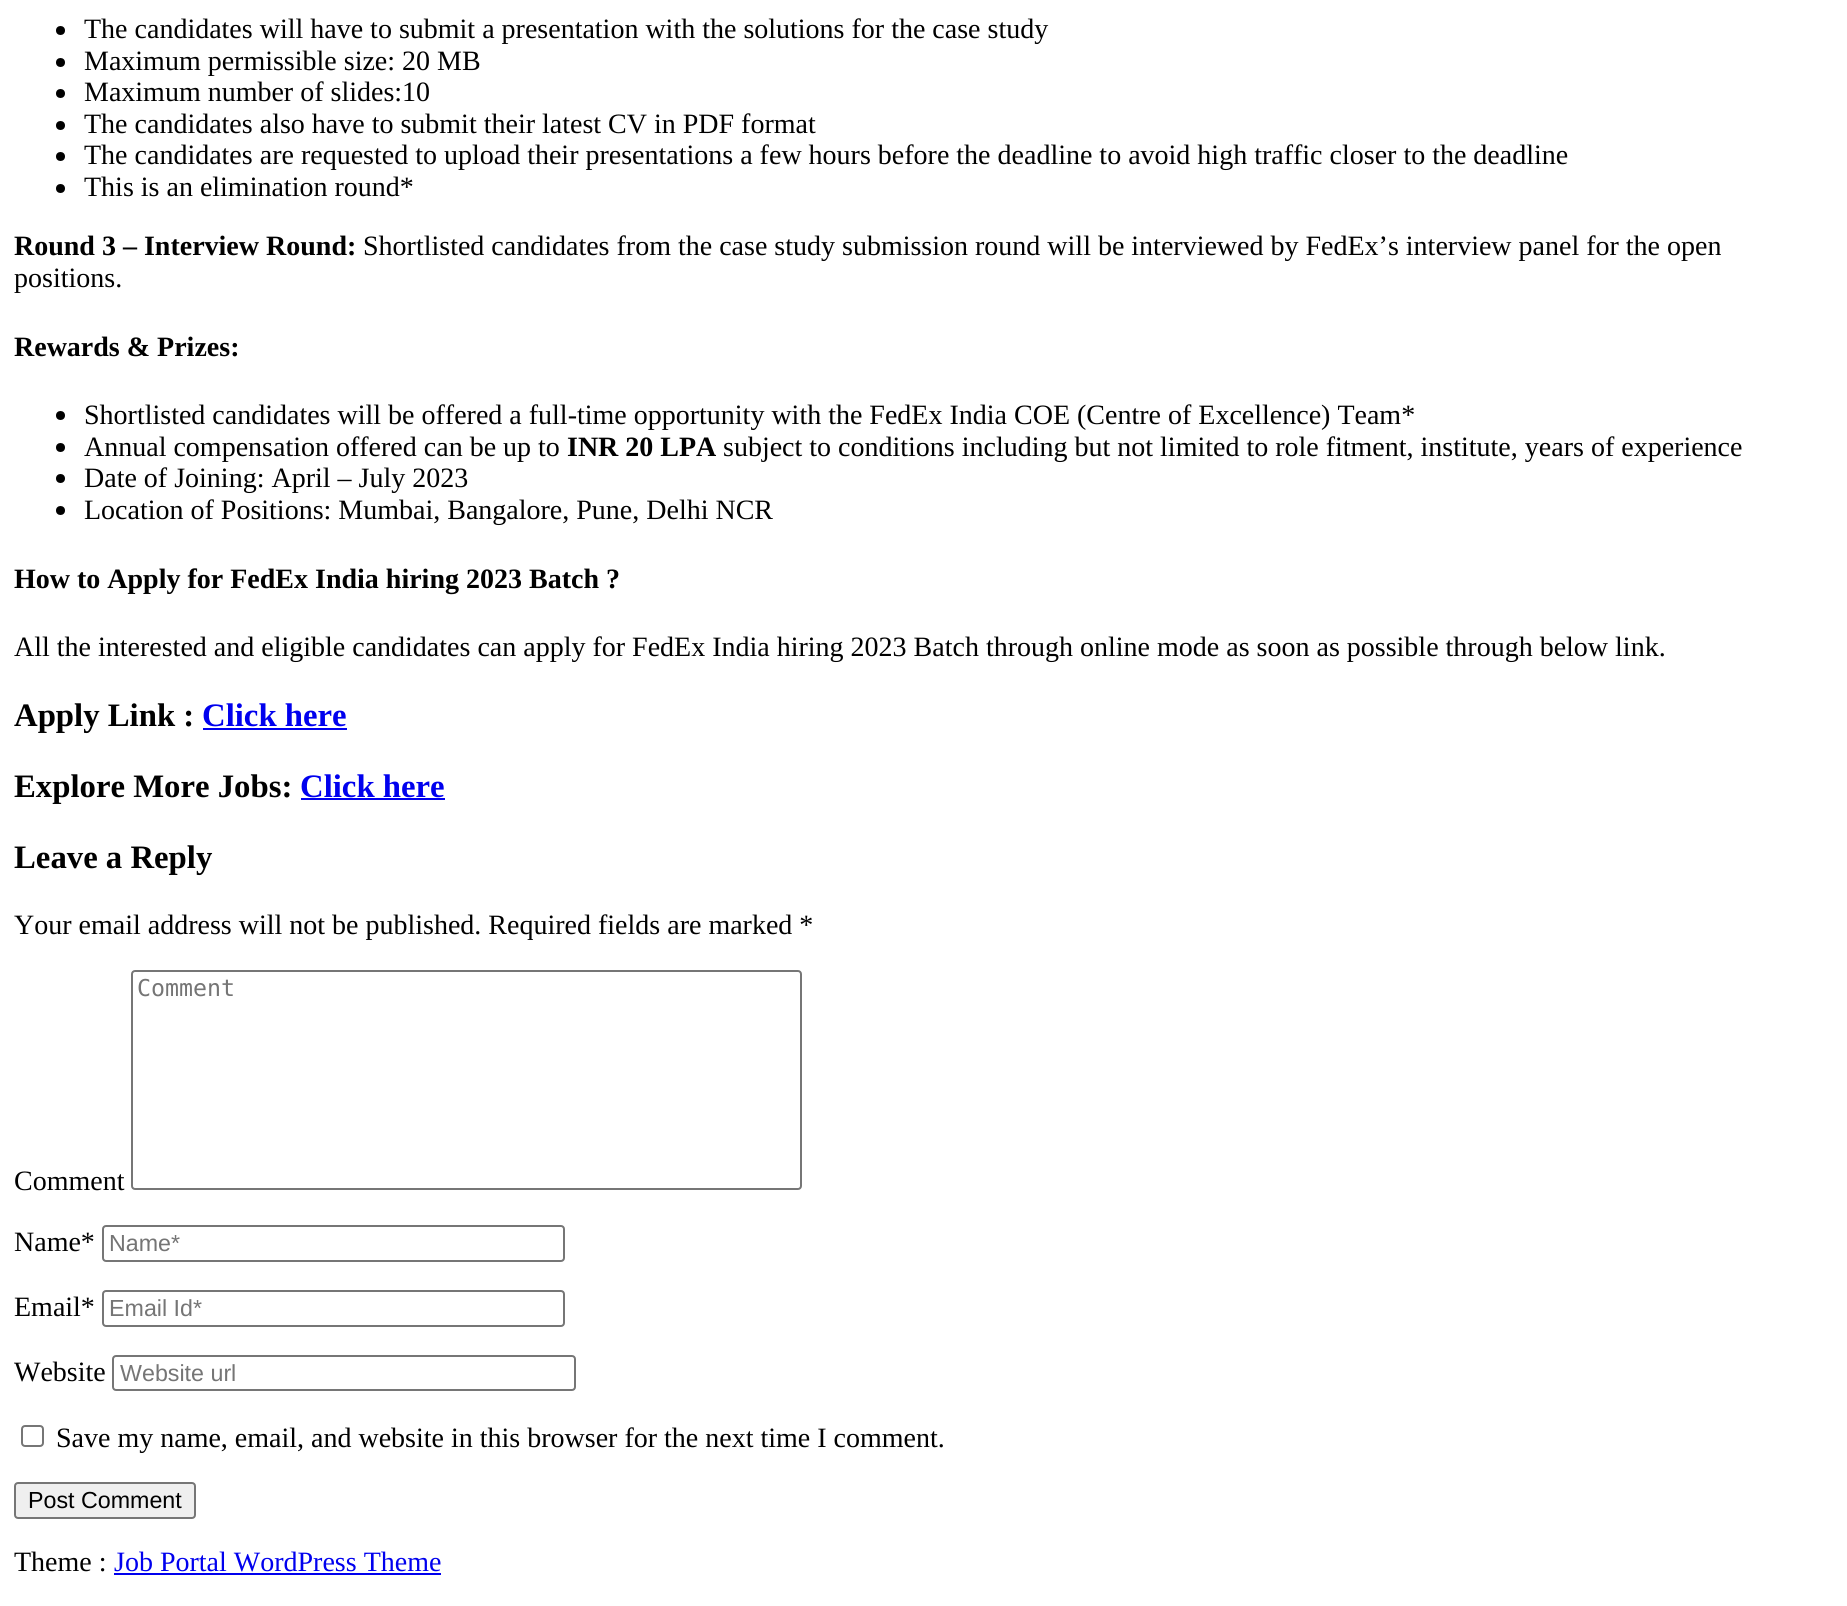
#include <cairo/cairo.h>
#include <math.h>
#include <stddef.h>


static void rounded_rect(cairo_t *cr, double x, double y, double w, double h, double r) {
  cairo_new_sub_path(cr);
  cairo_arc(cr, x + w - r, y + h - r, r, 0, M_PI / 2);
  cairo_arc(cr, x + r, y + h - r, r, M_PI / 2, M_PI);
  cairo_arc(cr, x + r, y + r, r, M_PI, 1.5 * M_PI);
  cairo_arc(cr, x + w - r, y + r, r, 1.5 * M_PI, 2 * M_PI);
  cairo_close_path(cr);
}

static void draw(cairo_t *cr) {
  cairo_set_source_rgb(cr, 1, 1, 1);
  cairo_paint(cr);
  cairo_set_source_rgb(cr, 0, 0, 0);
  cairo_arc(cr, 60.5, 30.5, 4.5, 0, 2 * M_PI);
  cairo_fill(cr);
  cairo_arc(cr, 60.5, 62.5, 4.5, 0, 2 * M_PI);
  cairo_fill(cr);
  cairo_arc(cr, 60.5, 93.5, 4.5, 0, 2 * M_PI);
  cairo_fill(cr);
  cairo_arc(cr, 60.5, 125.5, 4.5, 0, 2 * M_PI);
  cairo_fill(cr);
  cairo_arc(cr, 60.5, 156.5, 4.5, 0, 2 * M_PI);
  cairo_fill(cr);
  cairo_arc(cr, 60.5, 188.5, 4.5, 0, 2 * M_PI);
  cairo_fill(cr);
  cairo_arc(cr, 60.5, 415.5, 4.5, 0, 2 * M_PI);
  cairo_fill(cr);
  cairo_arc(cr, 60.5, 447.5, 4.5, 0, 2 * M_PI);
  cairo_fill(cr);
  cairo_arc(cr, 60.5, 478.5, 4.5, 0, 2 * M_PI);
  cairo_fill(cr);
  cairo_arc(cr, 60.5, 510.5, 4.5, 0, 2 * M_PI);
  cairo_fill(cr);
  cairo_set_source_rgb(cr, 0, 0, 238 / 255.0);
  cairo_rectangle(cr, 203, 728, 144, 2);
  cairo_fill(cr);
  cairo_rectangle(cr, 301, 798, 144, 2);
  cairo_fill(cr);
  rounded_rect(cr, 132, 971, 669, 218, 3);
  cairo_set_source_rgb(cr, 118 / 255.0, 118 / 255.0, 118 / 255.0);
  cairo_stroke(cr);
  rounded_rect(cr, 103, 1226, 461, 35, 3);
  cairo_stroke(cr);
  rounded_rect(cr, 103, 1291, 461, 35, 3);
  cairo_stroke(cr);
  rounded_rect(cr, 113, 1356, 462, 34, 3);
  cairo_stroke(cr);
  rounded_rect(cr, 22, 1426, 21, 20, 3);
  cairo_stroke(cr);
  cairo_set_source_rgb(cr, 239 / 255.0, 239 / 255.0, 239 / 255.0);
  rounded_rect(cr, 15, 1483, 180, 35, 3);
  cairo_fill_preserve(cr);
  cairo_set_source_rgb(cr, 118 / 255.0, 118 / 255.0, 118 / 255.0);
  cairo_stroke(cr);
  cairo_set_source_rgb(cr, 0, 0, 238 / 255.0);
  cairo_rectangle(cr, 114, 1573, 327, 2);
  cairo_fill(cr);
  cairo_select_font_face(cr, "Liberation Serif", CAIRO_FONT_SLANT_NORMAL, CAIRO_FONT_WEIGHT_NORMAL);
  cairo_set_font_size(cr, 28);
  cairo_set_source_rgb(cr, 0, 0, 0);
  cairo_move_to(cr, 84, 38);
  cairo_show_text(cr, "The candidates will have to submit a presentation with the solutions for the case study");
  cairo_move_to(cr, 84, 70);
  cairo_show_text(cr, "Maximum permissible size: 20 MB");
  cairo_move_to(cr, 84, 101);
  cairo_show_text(cr, "Maximum number of slides:10");
  cairo_move_to(cr, 84, 133);
  cairo_show_text(cr, "The candidates also have to submit their latest CV in PDF format");
  cairo_move_to(cr, 84, 164);
  cairo_show_text(cr, "The candidates are requested to upload their presentations a few hours before the deadline to avoid high traffic closer to the deadline");
  cairo_move_to(cr, 84, 196);
  cairo_show_text(cr, "This is an elimination round*");
  cairo_select_font_face(cr, "Liberation Serif", CAIRO_FONT_SLANT_NORMAL, CAIRO_FONT_WEIGHT_BOLD);
  cairo_move_to(cr, 14, 255);
  cairo_show_text(cr, "Round 3 – Interview Round:");
  cairo_select_font_face(cr, "Liberation Serif", CAIRO_FONT_SLANT_NORMAL, CAIRO_FONT_WEIGHT_NORMAL);
  cairo_move_to(cr, 363, 255);
  cairo_show_text(cr, "Shortlisted candidates from the case study submission round will be interviewed by FedEx’s interview panel for the open");
  cairo_move_to(cr, 14, 287);
  cairo_show_text(cr, "positions.");
  cairo_select_font_face(cr, "Liberation Serif", CAIRO_FONT_SLANT_NORMAL, CAIRO_FONT_WEIGHT_BOLD);
  cairo_move_to(cr, 14, 356);
  cairo_show_text(cr, "Rewards & Prizes:");
  cairo_select_font_face(cr, "Liberation Serif", CAIRO_FONT_SLANT_NORMAL, CAIRO_FONT_WEIGHT_NORMAL);
  cairo_move_to(cr, 84, 424);
  cairo_show_text(cr, "Shortlisted candidates will be offered a full-time opportunity with the FedEx India COE (Centre of Excellence) Team*");
  cairo_move_to(cr, 84, 456);
  cairo_show_text(cr, "Annual compensation offered can be up to");
  cairo_select_font_face(cr, "Liberation Serif", CAIRO_FONT_SLANT_NORMAL, CAIRO_FONT_WEIGHT_BOLD);
  cairo_move_to(cr, 567, 456);
  cairo_show_text(cr, "INR 20 LPA");
  cairo_select_font_face(cr, "Liberation Serif", CAIRO_FONT_SLANT_NORMAL, CAIRO_FONT_WEIGHT_NORMAL);
  cairo_move_to(cr, 723, 456);
  cairo_show_text(cr, "subject to conditions including but not limited to role fitment, institute, years of experience");
  cairo_move_to(cr, 84, 487);
  cairo_show_text(cr, "Date of Joining: April – July 2023");
  cairo_move_to(cr, 84, 519);
  cairo_show_text(cr, "Location of Positions: Mumbai, Bangalore, Pune, Delhi NCR");
  cairo_select_font_face(cr, "Liberation Serif", CAIRO_FONT_SLANT_NORMAL, CAIRO_FONT_WEIGHT_BOLD);
  cairo_move_to(cr, 14, 588);
  cairo_show_text(cr, "How to Apply for FedEx India hiring 2023 Batch ?");
  cairo_select_font_face(cr, "Liberation Serif", CAIRO_FONT_SLANT_NORMAL, CAIRO_FONT_WEIGHT_NORMAL);
  cairo_move_to(cr, 14, 656);
  cairo_show_text(cr, "All the interested and eligible candidates can apply for FedEx India hiring 2023 Batch through online mode as soon as possible through below link.");
  cairo_select_font_face(cr, "Liberation Serif", CAIRO_FONT_SLANT_NORMAL, CAIRO_FONT_WEIGHT_BOLD);
  cairo_set_font_size(cr, 32.75);
  cairo_move_to(cr, 14, 726);
  cairo_show_text(cr, "Apply Link :");
  cairo_set_source_rgb(cr, 0, 0, 238 / 255.0);
  cairo_move_to(cr, 202, 726);
  cairo_show_text(cr, "Click here");
  cairo_set_source_rgb(cr, 0, 0, 0);
  cairo_move_to(cr, 14, 797);
  cairo_show_text(cr, "Explore More Jobs:");
  cairo_set_source_rgb(cr, 0, 0, 238 / 255.0);
  cairo_move_to(cr, 300, 797);
  cairo_show_text(cr, "Click here");
  cairo_set_source_rgb(cr, 0, 0, 0);
  cairo_move_to(cr, 14, 868);
  cairo_show_text(cr, "Leave a Reply");
  cairo_select_font_face(cr, "Liberation Serif", CAIRO_FONT_SLANT_NORMAL, CAIRO_FONT_WEIGHT_NORMAL);
  cairo_set_font_size(cr, 28);
  cairo_move_to(cr, 14, 934);
  cairo_show_text(cr, "Your email address will not be published. Required fields are marked *");
  cairo_select_font_face(cr, "DejaVu Sans Mono", CAIRO_FONT_SLANT_NORMAL, CAIRO_FONT_WEIGHT_NORMAL);
  cairo_set_font_size(cr, 23.25);
  cairo_set_source_rgb(cr, 117 / 255.0, 117 / 255.0, 117 / 255.0);
  cairo_move_to(cr, 137, 996);
  cairo_show_text(cr, "Comment");
  cairo_select_font_face(cr, "Liberation Serif", CAIRO_FONT_SLANT_NORMAL, CAIRO_FONT_WEIGHT_NORMAL);
  cairo_set_font_size(cr, 28);
  cairo_set_source_rgb(cr, 0, 0, 0);
  cairo_move_to(cr, 14, 1190);
  cairo_show_text(cr, "Comment");
  cairo_move_to(cr, 14, 1251);
  cairo_show_text(cr, "Name*");
  cairo_select_font_face(cr, "Liberation Sans", CAIRO_FONT_SLANT_NORMAL, CAIRO_FONT_WEIGHT_NORMAL);
  cairo_set_font_size(cr, 23.25);
  cairo_set_source_rgb(cr, 117 / 255.0, 117 / 255.0, 117 / 255.0);
  cairo_move_to(cr, 109, 1251);
  cairo_show_text(cr, "Name*");
  cairo_select_font_face(cr, "Liberation Serif", CAIRO_FONT_SLANT_NORMAL, CAIRO_FONT_WEIGHT_NORMAL);
  cairo_set_font_size(cr, 28);
  cairo_set_source_rgb(cr, 0, 0, 0);
  cairo_move_to(cr, 14, 1316);
  cairo_show_text(cr, "Email*");
  cairo_select_font_face(cr, "Liberation Sans", CAIRO_FONT_SLANT_NORMAL, CAIRO_FONT_WEIGHT_NORMAL);
  cairo_set_font_size(cr, 23.25);
  cairo_set_source_rgb(cr, 117 / 255.0, 117 / 255.0, 117 / 255.0);
  cairo_move_to(cr, 109, 1316);
  cairo_show_text(cr, "Email Id*");
  cairo_select_font_face(cr, "Liberation Serif", CAIRO_FONT_SLANT_NORMAL, CAIRO_FONT_WEIGHT_NORMAL);
  cairo_set_font_size(cr, 28);
  cairo_set_source_rgb(cr, 0, 0, 0);
  cairo_move_to(cr, 14, 1381);
  cairo_show_text(cr, "Website");
  cairo_select_font_face(cr, "Liberation Sans", CAIRO_FONT_SLANT_NORMAL, CAIRO_FONT_WEIGHT_NORMAL);
  cairo_set_font_size(cr, 23.25);
  cairo_set_source_rgb(cr, 117 / 255.0, 117 / 255.0, 117 / 255.0);
  cairo_move_to(cr, 120, 1381);
  cairo_show_text(cr, "Website url");
  cairo_select_font_face(cr, "Liberation Serif", CAIRO_FONT_SLANT_NORMAL, CAIRO_FONT_WEIGHT_NORMAL);
  cairo_set_font_size(cr, 28);
  cairo_set_source_rgb(cr, 0, 0, 0);
  cairo_move_to(cr, 56, 1447);
  cairo_show_text(cr, "Save my name, email, and website in this browser for the next time I comment.");
  cairo_select_font_face(cr, "Liberation Sans", CAIRO_FONT_SLANT_NORMAL, CAIRO_FONT_WEIGHT_NORMAL);
  cairo_set_font_size(cr, 23.25);
  cairo_move_to(cr, 28, 1508);
  cairo_show_text(cr, "Post Comment");
  cairo_select_font_face(cr, "Liberation Serif", CAIRO_FONT_SLANT_NORMAL, CAIRO_FONT_WEIGHT_NORMAL);
  cairo_set_font_size(cr, 28);
  cairo_move_to(cr, 14, 1571);
  cairo_show_text(cr, "Theme :");
  cairo_set_source_rgb(cr, 0, 0, 238 / 255.0);
  cairo_move_to(cr, 114, 1571);
  cairo_show_text(cr, "Job Portal WordPress Theme");
}

int main(void) {
  cairo_surface_t *surface = cairo_image_surface_create(CAIRO_FORMAT_RGB24, 1847, 1606);
  cairo_t *cr = cairo_create(surface);
  cairo_font_options_t *options = cairo_font_options_create();
  cairo_font_options_set_hint_metrics(options, CAIRO_HINT_METRICS_OFF);
  cairo_font_options_set_hint_style(options, CAIRO_HINT_STYLE_NONE);
  cairo_set_font_options(cr, options);
  cairo_set_miter_limit(cr, 4);
  draw(cr);
  cairo_surface_write_to_png(surface, "out.png");
  cairo_font_options_destroy(options);
  cairo_destroy(cr);
  cairo_surface_destroy(surface);
  return 0;
}
